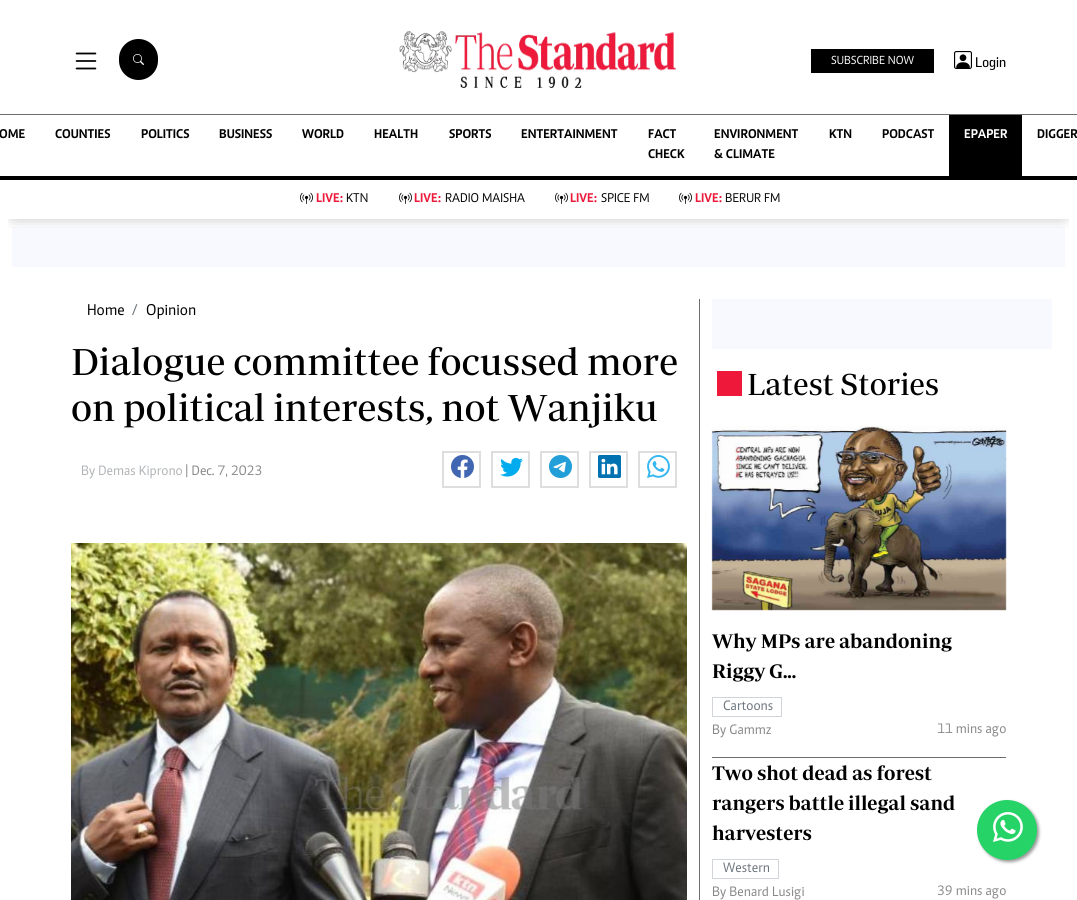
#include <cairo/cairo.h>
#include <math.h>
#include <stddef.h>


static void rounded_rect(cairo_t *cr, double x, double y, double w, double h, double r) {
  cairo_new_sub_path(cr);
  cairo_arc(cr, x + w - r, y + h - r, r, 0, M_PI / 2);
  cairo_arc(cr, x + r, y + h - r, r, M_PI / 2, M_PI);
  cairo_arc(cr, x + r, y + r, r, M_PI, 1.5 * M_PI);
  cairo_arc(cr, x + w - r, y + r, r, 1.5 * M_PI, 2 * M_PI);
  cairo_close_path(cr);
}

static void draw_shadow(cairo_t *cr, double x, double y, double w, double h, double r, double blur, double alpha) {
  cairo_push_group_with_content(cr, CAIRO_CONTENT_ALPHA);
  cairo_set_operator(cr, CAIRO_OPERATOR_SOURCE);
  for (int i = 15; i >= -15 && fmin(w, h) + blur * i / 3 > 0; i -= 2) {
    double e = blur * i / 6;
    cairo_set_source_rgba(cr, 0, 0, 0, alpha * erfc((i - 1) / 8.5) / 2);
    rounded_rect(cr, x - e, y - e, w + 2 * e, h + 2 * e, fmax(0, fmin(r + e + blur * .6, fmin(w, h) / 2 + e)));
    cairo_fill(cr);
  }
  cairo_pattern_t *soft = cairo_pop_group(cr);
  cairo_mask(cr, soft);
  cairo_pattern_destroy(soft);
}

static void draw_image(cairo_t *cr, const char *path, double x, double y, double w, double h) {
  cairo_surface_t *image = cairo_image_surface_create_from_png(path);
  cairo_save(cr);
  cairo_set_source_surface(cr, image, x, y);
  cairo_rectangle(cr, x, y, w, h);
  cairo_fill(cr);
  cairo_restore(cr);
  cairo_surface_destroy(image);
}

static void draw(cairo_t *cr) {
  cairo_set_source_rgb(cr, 1, 1, 1);
  cairo_paint(cr);
  draw_image(cr, "images/1.png", 75, 52, 22, 18);
  cairo_set_source_rgb(cr, 0, 0, 0);
  rounded_rect(cr, 119, 39, 39, 41, 19.5);
  cairo_fill(cr);
  draw_image(cr, "images/2.png", 133, 54, 11, 11);
  draw_image(cr, "images/3.png", 399, 31, 277, 57);
  cairo_rectangle(cr, 811, 49, 123, 24);
  cairo_fill(cr);
  draw_image(cr, "images/4.png", 954, 51, 18, 18);
  cairo_set_source_rgb(cr, 110 / 255.0, 109 / 255.0, 109 / 255.0);
  cairo_rectangle(cr, 0, 114, 1077, 1);
  cairo_fill(cr);
  cairo_set_source_rgb(cr, 0, 0, 0);
  cairo_rectangle(cr, 0, 176, 1077, 4);
  cairo_fill(cr);
  cairo_set_source_rgb(cr, 248 / 255.0, 248 / 255.0, 1);
  cairo_rectangle(cr, 12, 227, 1053, 40);
  cairo_fill(cr);
  cairo_save(cr);
  cairo_rectangle(cr, 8, 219, 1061, 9);
  cairo_clip(cr);
  cairo_set_source_rgb(cr, 0, 0, 0);
  draw_shadow(cr, 15, 203, 1047, 9, 0, 9, 0.56);
  cairo_restore(cr);
  cairo_set_source_rgb(cr, 0, 0, 0);
  cairo_rectangle(cr, 949, 115, 73, 61);
  cairo_fill(cr);
  draw_image(cr, "images/5.png", 300, 192, 13, 12);
  draw_image(cr, "images/5.png", 399, 192, 13, 12);
  draw_image(cr, "images/5.png", 555, 192, 13, 12);
  draw_image(cr, "images/5.png", 679, 192, 13, 12);
  cairo_rectangle(cr, 443, 452, 37, 35);
  cairo_set_source_rgb(cr, 222 / 255.0, 222 / 255.0, 222 / 255.0);
  cairo_stroke(cr);
  draw_image(cr, "images/6.png", 451, 455, 23, 23);
  cairo_rectangle(cr, 492, 452, 37, 35);
  cairo_stroke(cr);
  draw_image(cr, "images/7.png", 500, 457, 23, 20);
  cairo_rectangle(cr, 541, 452, 37, 35);
  cairo_stroke(cr);
  draw_image(cr, "images/8.png", 549, 455, 23, 23);
  cairo_rectangle(cr, 590, 452, 37, 35);
  cairo_stroke(cr);
  draw_image(cr, "images/9.png", 598, 455, 23, 23);
  cairo_rectangle(cr, 639, 452, 37, 35);
  cairo_stroke(cr);
  draw_image(cr, "images/10.png", 647, 455, 23, 23);
  draw_image(cr, "images/11.png", 71, 543, 616, 357);
  cairo_set_source_rgb(cr, 110 / 255.0, 109 / 255.0, 109 / 255.0);
  cairo_rectangle(cr, 699, 299, 1, 601);
  cairo_fill(cr);
  cairo_set_source_rgb(cr, 248 / 255.0, 248 / 255.0, 1);
  cairo_rectangle(cr, 712, 299, 340, 50);
  cairo_fill(cr);
  cairo_set_source_rgb(cr, 238 / 255.0, 25 / 255.0, 58 / 255.0);
  cairo_rectangle(cr, 717, 371, 25, 25);
  cairo_fill(cr);
  cairo_set_source_rgb(cr, 110 / 255.0, 109 / 255.0, 109 / 255.0);
  cairo_rectangle(cr, 712, 757, 294, 1);
  cairo_fill(cr);
  draw_image(cr, "images/12.png", 711, 426, 296, 185);
  cairo_rectangle(cr, 712.5, 697.5, 69, 19);
  cairo_set_source_rgb(cr, 209 / 255.0, 213 / 255.0, 217 / 255.0);
  cairo_set_line_width(cr, 1);
  cairo_stroke(cr);
  cairo_rectangle(cr, 712.5, 859.5, 66, 19);
  cairo_stroke(cr);
  cairo_set_source_rgb(cr, 153 / 255.0, 153 / 255.0, 153 / 255.0);
  draw_shadow(cr, 979, 802, 60, 60, 30, 1.5, 1);
  cairo_set_source_rgb(cr, 37 / 255.0, 211 / 255.0, 102 / 255.0);
  cairo_arc(cr, 1007, 830, 30, 0, 2 * M_PI);
  cairo_fill(cr);
  draw_image(cr, "images/13.png", 993, 812, 30, 30);
  cairo_select_font_face(cr, "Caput", CAIRO_FONT_SLANT_NORMAL, CAIRO_FONT_WEIGHT_NORMAL);
  cairo_set_font_size(cr, 12);
  cairo_set_source_rgb(cr, 1, 1, 1);
  cairo_move_to(cr, 831, 64);
  cairo_show_text(cr, "SUBSCRIBE NOW");
  cairo_select_font_face(cr, "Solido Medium", CAIRO_FONT_SLANT_NORMAL, CAIRO_FONT_WEIGHT_NORMAL);
  cairo_set_font_size(cr, 14);
  cairo_set_source_rgb(cr, 0, 0, 0);
  cairo_move_to(cr, 975, 67);
  cairo_show_text(cr, "Login");
  cairo_select_font_face(cr, "Caput", CAIRO_FONT_SLANT_NORMAL, CAIRO_FONT_WEIGHT_BOLD);
  cairo_set_font_size(cr, 13);
  cairo_move_to(cr, -1, 138);
  cairo_show_text(cr, "OME");
  cairo_move_to(cr, 55, 138);
  cairo_show_text(cr, "COUNTIES");
  cairo_move_to(cr, 141, 138);
  cairo_show_text(cr, "POLITICS");
  cairo_move_to(cr, 219, 138);
  cairo_show_text(cr, "BUSINESS");
  cairo_move_to(cr, 302, 138);
  cairo_show_text(cr, "WORLD");
  cairo_move_to(cr, 374, 138);
  cairo_show_text(cr, "HEALTH");
  cairo_move_to(cr, 449, 138);
  cairo_show_text(cr, "SPORTS");
  cairo_move_to(cr, 521, 138);
  cairo_show_text(cr, "ENTERTAINMENT");
  cairo_move_to(cr, 648, 138);
  cairo_show_text(cr, "FACT");
  cairo_move_to(cr, 648, 158);
  cairo_show_text(cr, "CHECK");
  cairo_move_to(cr, 714, 138);
  cairo_show_text(cr, "ENVIRONMENT");
  cairo_move_to(cr, 714, 158);
  cairo_show_text(cr, "& CLIMATE");
  cairo_move_to(cr, 829, 138);
  cairo_show_text(cr, "KTN");
  cairo_move_to(cr, 882, 138);
  cairo_show_text(cr, "PODCAST");
  cairo_set_source_rgb(cr, 1, 1, 1);
  cairo_move_to(cr, 964, 138);
  cairo_show_text(cr, "EPAPER");
  cairo_set_source_rgb(cr, 0, 0, 0);
  cairo_move_to(cr, 1037, 138);
  cairo_show_text(cr, "DIGGER");
  cairo_set_source_rgb(cr, 237 / 255.0, 26 / 255.0, 59 / 255.0);
  cairo_move_to(cr, 316, 202);
  cairo_show_text(cr, "LIVE:");
  cairo_select_font_face(cr, "Caput", CAIRO_FONT_SLANT_NORMAL, CAIRO_FONT_WEIGHT_NORMAL);
  cairo_set_source_rgb(cr, 0, 0, 0);
  cairo_move_to(cr, 346, 202);
  cairo_show_text(cr, "KTN");
  cairo_select_font_face(cr, "Caput", CAIRO_FONT_SLANT_NORMAL, CAIRO_FONT_WEIGHT_BOLD);
  cairo_set_source_rgb(cr, 237 / 255.0, 26 / 255.0, 59 / 255.0);
  cairo_move_to(cr, 414, 202);
  cairo_show_text(cr, "LIVE:");
  cairo_select_font_face(cr, "Caput", CAIRO_FONT_SLANT_NORMAL, CAIRO_FONT_WEIGHT_NORMAL);
  cairo_set_source_rgb(cr, 0, 0, 0);
  cairo_move_to(cr, 445, 202);
  cairo_show_text(cr, "RADIO MAISHA");
  cairo_select_font_face(cr, "Caput", CAIRO_FONT_SLANT_NORMAL, CAIRO_FONT_WEIGHT_BOLD);
  cairo_set_source_rgb(cr, 237 / 255.0, 26 / 255.0, 59 / 255.0);
  cairo_move_to(cr, 570, 202);
  cairo_show_text(cr, "LIVE:");
  cairo_select_font_face(cr, "Caput", CAIRO_FONT_SLANT_NORMAL, CAIRO_FONT_WEIGHT_NORMAL);
  cairo_set_source_rgb(cr, 0, 0, 0);
  cairo_move_to(cr, 601, 202);
  cairo_show_text(cr, "SPICE FM");
  cairo_select_font_face(cr, "Caput", CAIRO_FONT_SLANT_NORMAL, CAIRO_FONT_WEIGHT_BOLD);
  cairo_set_source_rgb(cr, 237 / 255.0, 26 / 255.0, 59 / 255.0);
  cairo_move_to(cr, 695, 202);
  cairo_show_text(cr, "LIVE:");
  cairo_select_font_face(cr, "Caput", CAIRO_FONT_SLANT_NORMAL, CAIRO_FONT_WEIGHT_NORMAL);
  cairo_set_source_rgb(cr, 0, 0, 0);
  cairo_move_to(cr, 725, 202);
  cairo_show_text(cr, "BERUR FM");
  cairo_set_font_size(cr, 16);
  cairo_move_to(cr, 87, 315);
  cairo_show_text(cr, "Home");
  cairo_set_source_rgb(cr, 108 / 255.0, 117 / 255.0, 125 / 255.0);
  cairo_move_to(cr, 132, 315);
  cairo_show_text(cr, "/");
  cairo_set_source_rgb(cr, 0, 0, 0);
  cairo_move_to(cr, 146, 315);
  cairo_show_text(cr, "Opinion");
  cairo_select_font_face(cr, "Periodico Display", CAIRO_FONT_SLANT_NORMAL, CAIRO_FONT_WEIGHT_NORMAL);
  cairo_set_font_size(cr, 38.2);
  cairo_move_to(cr, 71, 375);
  cairo_show_text(cr, "Dialogue committee focussed more");
  cairo_move_to(cr, 71, 421);
  cairo_show_text(cr, "on political interests, not Wanjiku");
  cairo_select_font_face(cr, "Caput", CAIRO_FONT_SLANT_NORMAL, CAIRO_FONT_WEIGHT_NORMAL);
  cairo_set_font_size(cr, 14);
  cairo_set_source_rgb(cr, 177 / 255.0, 180 / 255.0, 183 / 255.0);
  cairo_move_to(cr, 81, 475);
  cairo_show_text(cr, "By Demas Kiprono");
  cairo_set_source_rgb(cr, 136 / 255.0, 136 / 255.0, 136 / 255.0);
  cairo_move_to(cr, 185, 475);
  cairo_show_text(cr, "| Dec. 7, 2023");
  cairo_select_font_face(cr, "Periodico Display", CAIRO_FONT_SLANT_NORMAL, CAIRO_FONT_WEIGHT_NORMAL);
  cairo_set_font_size(cr, 31);
  cairo_set_source_rgb(cr, 0, 0, 0);
  cairo_move_to(cr, 747, 395);
  cairo_show_text(cr, "Latest Stories");
  cairo_select_font_face(cr, "Periodico Display SemiBold", CAIRO_FONT_SLANT_NORMAL, CAIRO_FONT_WEIGHT_NORMAL);
  cairo_set_font_size(cr, 20);
  cairo_move_to(cr, 712, 648);
  cairo_show_text(cr, "Why MPs are abandoning");
  cairo_move_to(cr, 712, 678);
  cairo_show_text(cr, "Riggy G...");
  cairo_select_font_face(cr, "Caput", CAIRO_FONT_SLANT_NORMAL, CAIRO_FONT_WEIGHT_NORMAL);
  cairo_set_font_size(cr, 14);
  cairo_set_source_rgb(cr, 108 / 255.0, 117 / 255.0, 125 / 255.0);
  cairo_move_to(cr, 723, 710);
  cairo_show_text(cr, "Cartoons");
  cairo_set_source_rgb(cr, 136 / 255.0, 136 / 255.0, 136 / 255.0);
  cairo_move_to(cr, 712, 734);
  cairo_show_text(cr, "By Gammz");
  cairo_move_to(cr, 937, 733);
  cairo_show_text(cr, "11 mins ago");
  cairo_select_font_face(cr, "Periodico Display SemiBold", CAIRO_FONT_SLANT_NORMAL, CAIRO_FONT_WEIGHT_NORMAL);
  cairo_set_font_size(cr, 20);
  cairo_set_source_rgb(cr, 0, 0, 0);
  cairo_move_to(cr, 712, 780);
  cairo_show_text(cr, "Two shot dead as forest");
  cairo_move_to(cr, 712, 810);
  cairo_show_text(cr, "rangers battle illegal sand");
  cairo_move_to(cr, 712, 840);
  cairo_show_text(cr, "harvesters");
  cairo_select_font_face(cr, "Caput", CAIRO_FONT_SLANT_NORMAL, CAIRO_FONT_WEIGHT_NORMAL);
  cairo_set_font_size(cr, 14);
  cairo_set_source_rgb(cr, 108 / 255.0, 117 / 255.0, 125 / 255.0);
  cairo_move_to(cr, 723, 872);
  cairo_show_text(cr, "Western");
  cairo_set_source_rgb(cr, 136 / 255.0, 136 / 255.0, 136 / 255.0);
  cairo_move_to(cr, 712, 896);
  cairo_show_text(cr, "By Benard Lusigi");
  cairo_move_to(cr, 937, 895);
  cairo_show_text(cr, "39 mins ago");
}

int main(void) {
  cairo_surface_t *surface = cairo_image_surface_create(CAIRO_FORMAT_RGB24, 1077, 900);
  cairo_t *cr = cairo_create(surface);
  cairo_font_options_t *options = cairo_font_options_create();
  cairo_font_options_set_hint_metrics(options, CAIRO_HINT_METRICS_OFF);
  cairo_font_options_set_hint_style(options, CAIRO_HINT_STYLE_NONE);
  cairo_set_font_options(cr, options);
  cairo_set_miter_limit(cr, 4);
  draw(cr);
  cairo_surface_write_to_png(surface, "out.png");
  cairo_font_options_destroy(options);
  cairo_destroy(cr);
  cairo_surface_destroy(surface);
  return 0;
}
